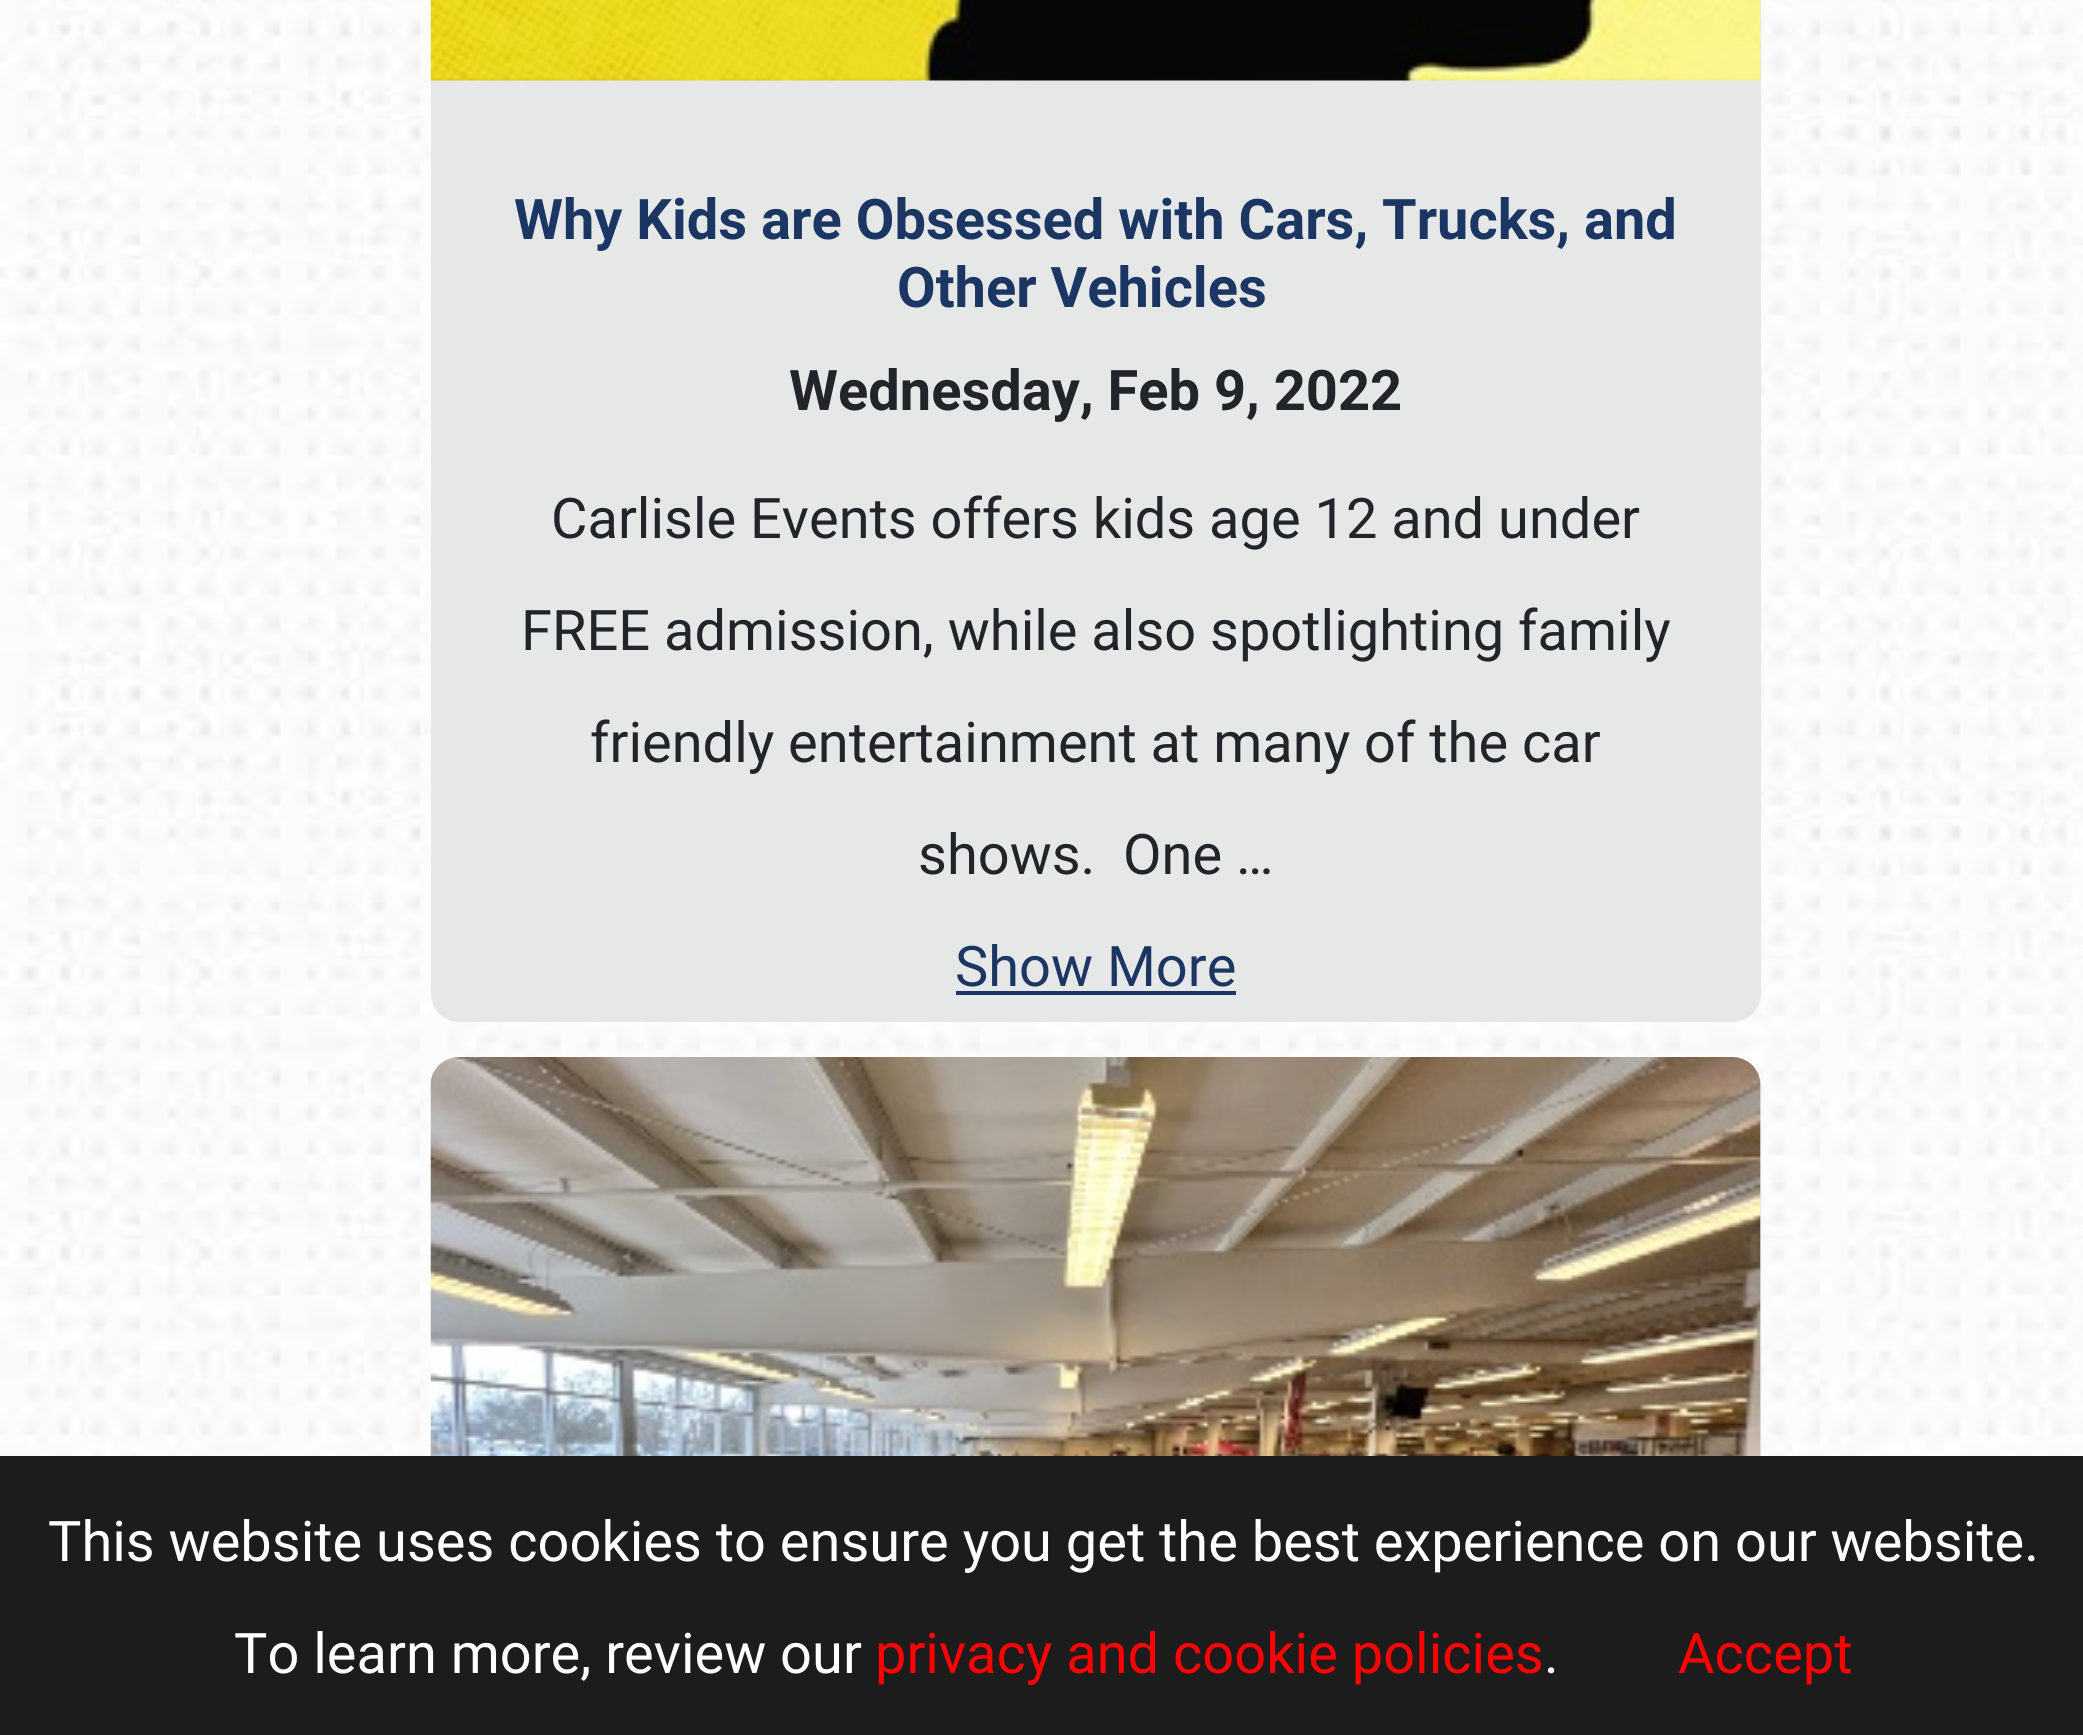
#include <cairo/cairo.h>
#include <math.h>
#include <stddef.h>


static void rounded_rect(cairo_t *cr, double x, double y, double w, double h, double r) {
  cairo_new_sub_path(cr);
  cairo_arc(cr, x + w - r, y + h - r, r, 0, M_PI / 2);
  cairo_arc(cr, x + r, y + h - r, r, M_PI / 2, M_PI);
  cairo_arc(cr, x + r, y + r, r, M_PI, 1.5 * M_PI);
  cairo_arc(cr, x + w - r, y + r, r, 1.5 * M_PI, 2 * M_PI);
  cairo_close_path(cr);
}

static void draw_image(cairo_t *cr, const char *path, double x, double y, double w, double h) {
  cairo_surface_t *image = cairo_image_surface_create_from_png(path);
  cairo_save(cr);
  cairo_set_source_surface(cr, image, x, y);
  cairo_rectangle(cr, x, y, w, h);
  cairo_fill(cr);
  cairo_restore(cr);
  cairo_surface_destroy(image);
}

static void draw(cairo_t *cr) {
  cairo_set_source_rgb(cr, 1, 1, 1);
  cairo_paint(cr);
  draw_image(cr, "images/1.png", 0, 0, 2083, 1456);
  cairo_set_source_rgb(cr, 230 / 255.0, 231 / 255.0, 231 / 255.0);
  rounded_rect(cr, 431, -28, 1330, 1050, 28);
  cairo_fill(cr);
  draw_image(cr, "images/2.png", 430, 0, 1331, 81);
  cairo_set_source_rgb(cr, 28 / 255.0, 54 / 255.0, 100 / 255.0);
  cairo_rectangle(cr, 956, 991, 280, 4);
  cairo_fill(cr);
  cairo_set_source_rgb(cr, 230 / 255.0, 231 / 255.0, 231 / 255.0);
  rounded_rect(cr, 431, 1057, 1330, 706, 28);
  cairo_fill(cr);
  draw_image(cr, "images/3.png", 430, 1057, 1331, 399);
  cairo_set_source_rgb(cr, 28 / 255.0, 28 / 255.0, 28 / 255.0);
  cairo_rectangle(cr, 0, 1456, 2083, 279);
  cairo_fill(cr);
  cairo_select_font_face(cr, "Roboto", CAIRO_FONT_SLANT_NORMAL, CAIRO_FONT_WEIGHT_BOLD);
  cairo_set_font_size(cr, 56);
  cairo_set_source_rgb(cr, 28 / 255.0, 54 / 255.0, 100 / 255.0);
  cairo_move_to(cr, 514, 239);
  cairo_show_text(cr, "Why Kids are Obsessed with Cars, Trucks, and");
  cairo_move_to(cr, 897, 307);
  cairo_show_text(cr, "Other Vehicles");
  cairo_set_source_rgb(cr, 33 / 255.0, 37 / 255.0, 41 / 255.0);
  cairo_move_to(cr, 789, 410);
  cairo_show_text(cr, "Wednesday, Feb 9, 2022");
  cairo_select_font_face(cr, "Roboto", CAIRO_FONT_SLANT_NORMAL, CAIRO_FONT_WEIGHT_NORMAL);
  cairo_move_to(cr, 551, 538);
  cairo_show_text(cr, "Carlisle Events offers kids age 12 and under");
  cairo_move_to(cr, 521, 650);
  cairo_show_text(cr, "FREE admission, while also spotlighting family");
  cairo_move_to(cr, 590, 762);
  cairo_show_text(cr, "friendly entertainment at many of the car");
  cairo_move_to(cr, 918, 874);
  cairo_show_text(cr, "shows.  One …");
  cairo_set_source_rgb(cr, 28 / 255.0, 54 / 255.0, 100 / 255.0);
  cairo_move_to(cr, 955, 986);
  cairo_show_text(cr, "Show More");
  cairo_set_source_rgb(cr, 1, 1, 1);
  cairo_move_to(cr, 48, 1561);
  cairo_show_text(cr, "This website uses cookies to ensure you get the best experience on our website.");
  cairo_move_to(cr, 234, 1673);
  cairo_show_text(cr, "To learn more, review our");
  cairo_set_source_rgb(cr, 1, 0, 0);
  cairo_move_to(cr, 875, 1673);
  cairo_show_text(cr, "privacy and cookie policies");
  cairo_set_source_rgb(cr, 1, 1, 1);
  cairo_move_to(cr, 1544, 1673);
  cairo_show_text(cr, ".");
  cairo_set_source_rgb(cr, 1, 0, 0);
  cairo_move_to(cr, 1678, 1673);
  cairo_show_text(cr, "Accept");
}

int main(void) {
  cairo_surface_t *surface = cairo_image_surface_create(CAIRO_FORMAT_RGB24, 2083, 1735);
  cairo_t *cr = cairo_create(surface);
  cairo_font_options_t *options = cairo_font_options_create();
  cairo_font_options_set_hint_metrics(options, CAIRO_HINT_METRICS_OFF);
  cairo_font_options_set_hint_style(options, CAIRO_HINT_STYLE_NONE);
  cairo_set_font_options(cr, options);
  cairo_set_miter_limit(cr, 4);
  draw(cr);
  cairo_surface_write_to_png(surface, "out.png");
  cairo_font_options_destroy(options);
  cairo_destroy(cr);
  cairo_surface_destroy(surface);
  return 0;
}
